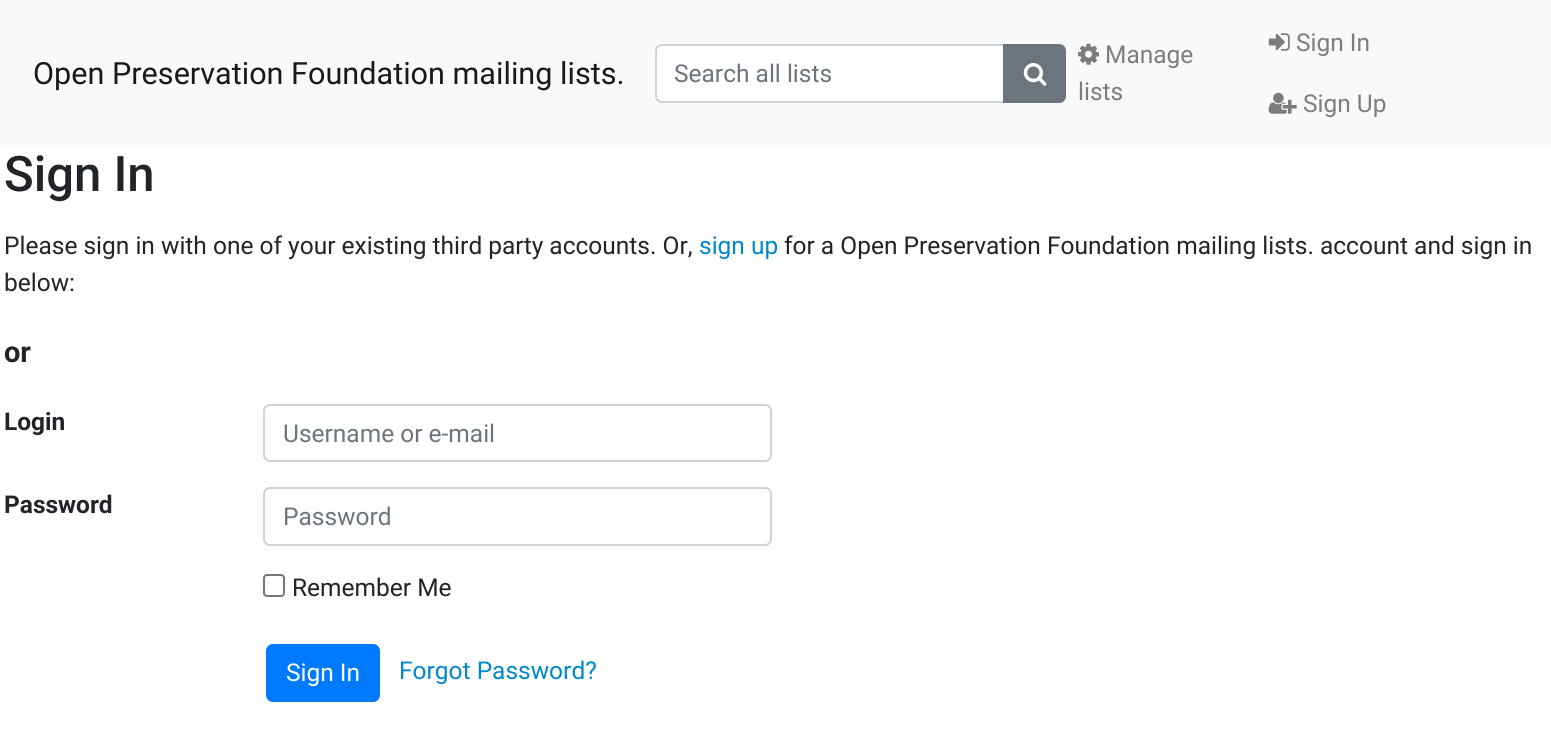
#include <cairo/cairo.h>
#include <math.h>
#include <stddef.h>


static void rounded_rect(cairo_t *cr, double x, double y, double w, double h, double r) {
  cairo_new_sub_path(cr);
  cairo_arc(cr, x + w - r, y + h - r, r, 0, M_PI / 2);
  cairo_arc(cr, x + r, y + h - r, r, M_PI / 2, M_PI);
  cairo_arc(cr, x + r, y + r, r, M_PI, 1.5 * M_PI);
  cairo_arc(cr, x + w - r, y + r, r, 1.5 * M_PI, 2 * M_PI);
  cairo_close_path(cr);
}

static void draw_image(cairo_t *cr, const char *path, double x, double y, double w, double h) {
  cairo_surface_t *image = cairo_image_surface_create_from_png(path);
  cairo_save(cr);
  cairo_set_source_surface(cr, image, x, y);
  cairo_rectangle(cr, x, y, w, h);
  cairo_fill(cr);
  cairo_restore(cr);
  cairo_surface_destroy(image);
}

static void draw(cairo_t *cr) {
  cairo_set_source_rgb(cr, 1, 1, 1);
  cairo_paint(cr);
  cairo_set_source_rgb(cr, 248 / 255.0, 249 / 255.0, 250 / 255.0);
  cairo_rectangle(cr, 0, 0, 1551, 147);
  cairo_fill(cr);
  cairo_set_source_rgb(cr, 1, 1, 1);
  cairo_new_path(cr);
  cairo_move_to(cr, 660, 46);
  cairo_line_to(cr, 1003, 46);
  cairo_line_to(cr, 1003, 102);
  cairo_line_to(cr, 660, 102);
  cairo_curve_to(cr, 658, 102, 656, 100, 656, 98);
  cairo_line_to(cr, 656, 50);
  cairo_curve_to(cr, 656, 48, 658, 46, 660, 46);
  cairo_close_path(cr);
  cairo_fill(cr);
  cairo_new_path(cr);
  cairo_move_to(cr, 662, 45);
  cairo_line_to(cr, 1004, 45);
  cairo_line_to(cr, 1004, 102);
  cairo_line_to(cr, 662, 102);
  cairo_curve_to(cr, 658.5, 102, 656, 99.5, 656, 96);
  cairo_line_to(cr, 656, 51);
  cairo_curve_to(cr, 656, 47.5, 658.5, 45, 662, 45);
  cairo_close_path(cr);
  cairo_set_source_rgb(cr, 206 / 255.0, 212 / 255.0, 218 / 255.0);
  cairo_stroke(cr);
  cairo_set_source_rgb(cr, 108 / 255.0, 117 / 255.0, 125 / 255.0);
  cairo_new_path(cr);
  cairo_move_to(cr, 1004, 45);
  cairo_line_to(cr, 1059, 45);
  cairo_curve_to(cr, 1062.5, 45, 1065, 47.5, 1065, 51);
  cairo_line_to(cr, 1065, 96);
  cairo_curve_to(cr, 1065, 99.5, 1062.5, 102, 1059, 102);
  cairo_line_to(cr, 1004, 102);
  cairo_close_path(cr);
  cairo_fill_preserve(cr);
  cairo_stroke(cr);
  draw_image(cr, "images/1.png", 1023, 63, 24, 23);
  draw_image(cr, "images/2.png", 1078, 43, 21, 22);
  draw_image(cr, "images/3.png", 1268, 33, 22, 18);
  draw_image(cr, "images/4.png", 1268, 92, 29, 22);
  rounded_rect(cr, 264, 405, 507, 56, 6);
  cairo_set_source_rgb(cr, 206 / 255.0, 212 / 255.0, 218 / 255.0);
  cairo_stroke(cr);
  rounded_rect(cr, 264, 488, 507, 57, 6);
  cairo_stroke(cr);
  rounded_rect(cr, 264, 575, 20, 21, 3);
  cairo_set_source_rgb(cr, 118 / 255.0, 118 / 255.0, 118 / 255.0);
  cairo_stroke(cr);
  cairo_set_source_rgb(cr, 0, 123 / 255.0, 1);
  rounded_rect(cr, 267, 645, 112, 56, 6);
  cairo_fill_preserve(cr);
  cairo_stroke(cr);
  cairo_select_font_face(cr, "Roboto", CAIRO_FONT_SLANT_NORMAL, CAIRO_FONT_WEIGHT_NORMAL);
  cairo_set_font_size(cr, 30.6);
  cairo_set_source_rgb(cr, 25 / 255.0, 25 / 255.0, 25 / 255.0);
  cairo_move_to(cr, 33, 84);
  cairo_show_text(cr, "Open Preservation Foundation mailing lists.");
  cairo_set_font_size(cr, 24.5);
  cairo_set_source_rgb(cr, 108 / 255.0, 117 / 255.0, 125 / 255.0);
  cairo_move_to(cr, 674, 82);
  cairo_show_text(cr, "Search all lists");
  cairo_set_source_rgb(cr, 124 / 255.0, 125 / 255.0, 125 / 255.0);
  cairo_move_to(cr, 1105, 63);
  cairo_show_text(cr, "Manage");
  cairo_move_to(cr, 1078, 100);
  cairo_show_text(cr, "lists");
  cairo_move_to(cr, 1296, 51);
  cairo_show_text(cr, "Sign In");
  cairo_move_to(cr, 1303, 112);
  cairo_show_text(cr, "Sign Up");
  cairo_select_font_face(cr, "Roboto Medium", CAIRO_FONT_SLANT_NORMAL, CAIRO_FONT_WEIGHT_NORMAL);
  cairo_set_font_size(cr, 49);
  cairo_set_source_rgb(cr, 33 / 255.0, 37 / 255.0, 41 / 255.0);
  cairo_move_to(cr, 4, 191);
  cairo_show_text(cr, "Sign In");
  cairo_select_font_face(cr, "Roboto", CAIRO_FONT_SLANT_NORMAL, CAIRO_FONT_WEIGHT_NORMAL);
  cairo_set_font_size(cr, 24.5);
  cairo_move_to(cr, 4, 254);
  cairo_show_text(cr, "Please sign in with one of your existing third party accounts. Or,");
  cairo_set_source_rgb(cr, 0, 136 / 255.0, 204 / 255.0);
  cairo_move_to(cr, 699, 254);
  cairo_show_text(cr, "sign up");
  cairo_set_source_rgb(cr, 33 / 255.0, 37 / 255.0, 41 / 255.0);
  cairo_move_to(cr, 784, 254);
  cairo_show_text(cr, "for a Open Preservation Foundation mailing lists. account and sign in");
  cairo_move_to(cr, 4, 291);
  cairo_show_text(cr, "below:");
  cairo_select_font_face(cr, "Roboto", CAIRO_FONT_SLANT_NORMAL, CAIRO_FONT_WEIGHT_BOLD);
  cairo_set_font_size(cr, 29);
  cairo_move_to(cr, 4, 362);
  cairo_show_text(cr, "or");
  cairo_set_font_size(cr, 24.5);
  cairo_move_to(cr, 4, 430);
  cairo_show_text(cr, "Login");
  cairo_select_font_face(cr, "Roboto", CAIRO_FONT_SLANT_NORMAL, CAIRO_FONT_WEIGHT_NORMAL);
  cairo_set_source_rgb(cr, 108 / 255.0, 117 / 255.0, 125 / 255.0);
  cairo_move_to(cr, 283, 442);
  cairo_show_text(cr, "Username or e-mail");
  cairo_select_font_face(cr, "Roboto", CAIRO_FONT_SLANT_NORMAL, CAIRO_FONT_WEIGHT_BOLD);
  cairo_set_source_rgb(cr, 33 / 255.0, 37 / 255.0, 41 / 255.0);
  cairo_move_to(cr, 4, 513);
  cairo_show_text(cr, "Password");
  cairo_select_font_face(cr, "Roboto", CAIRO_FONT_SLANT_NORMAL, CAIRO_FONT_WEIGHT_NORMAL);
  cairo_set_source_rgb(cr, 108 / 255.0, 117 / 255.0, 125 / 255.0);
  cairo_move_to(cr, 283, 525);
  cairo_show_text(cr, "Password");
  cairo_set_source_rgb(cr, 33 / 255.0, 37 / 255.0, 41 / 255.0);
  cairo_move_to(cr, 292, 596);
  cairo_show_text(cr, "Remember Me");
  cairo_set_source_rgb(cr, 1, 1, 1);
  cairo_move_to(cr, 286, 681);
  cairo_show_text(cr, "Sign In");
  cairo_set_source_rgb(cr, 0, 136 / 255.0, 204 / 255.0);
  cairo_move_to(cr, 399, 679);
  cairo_show_text(cr, "Forgot Password?");
}

int main(void) {
  cairo_surface_t *surface = cairo_image_surface_create(CAIRO_FORMAT_RGB24, 1551, 750);
  cairo_t *cr = cairo_create(surface);
  cairo_font_options_t *options = cairo_font_options_create();
  cairo_font_options_set_hint_metrics(options, CAIRO_HINT_METRICS_OFF);
  cairo_font_options_set_hint_style(options, CAIRO_HINT_STYLE_NONE);
  cairo_set_font_options(cr, options);
  cairo_set_miter_limit(cr, 4);
  draw(cr);
  cairo_surface_write_to_png(surface, "out.png");
  cairo_font_options_destroy(options);
  cairo_destroy(cr);
  cairo_surface_destroy(surface);
  return 0;
}
